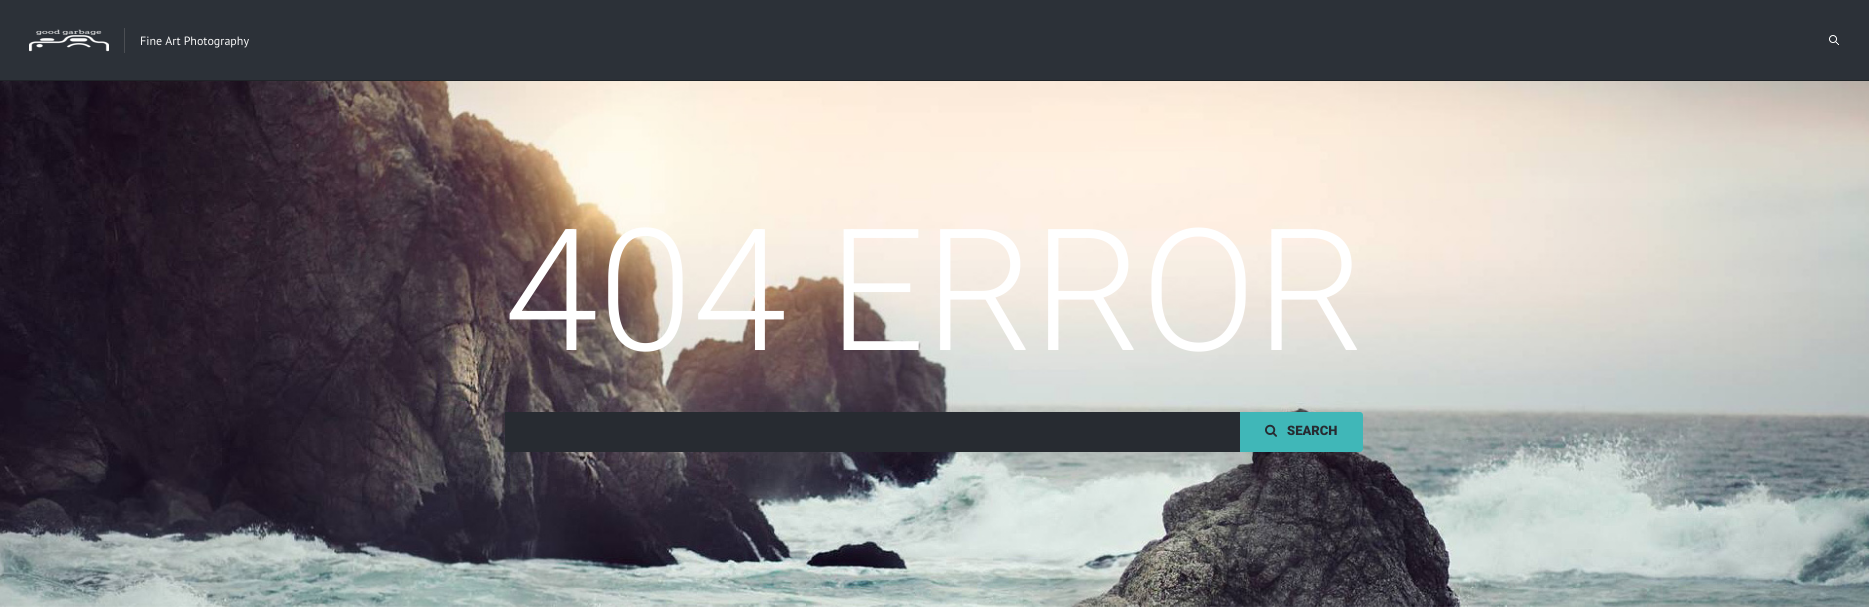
#include <cairo/cairo.h>
#include <math.h>
#include <stddef.h>


static void draw_image(cairo_t *cr, const char *path, double x, double y, double w, double h) {
  cairo_surface_t *image = cairo_image_surface_create_from_png(path);
  cairo_save(cr);
  cairo_set_source_surface(cr, image, x, y);
  cairo_rectangle(cr, x, y, w, h);
  cairo_fill(cr);
  cairo_restore(cr);
  cairo_surface_destroy(image);
}

static void draw(cairo_t *cr) {
  cairo_set_source_rgb(cr, 1, 1, 1);
  cairo_paint(cr);
  cairo_set_source_rgb(cr, 44 / 255.0, 49 / 255.0, 56 / 255.0);
  cairo_rectangle(cr, 0, 0, 1869, 80);
  cairo_fill(cr);
  cairo_set_source_rgb(cr, 32 / 255.0, 36 / 255.0, 40 / 255.0);
  cairo_rectangle(cr, 0, 80, 1869, 1);
  cairo_fill(cr);
  draw_image(cr, "images/1.png", 29, 29, 80, 23);
  cairo_set_source_rgb(cr, 75 / 255.0, 78 / 255.0, 83 / 255.0);
  cairo_rectangle(cr, 124, 28, 1, 25);
  cairo_fill(cr);
  draw_image(cr, "images/2.png", 1829, 35, 10, 10);
  draw_image(cr, "images/3.png", 0, 81, 1869, 526);
  cairo_set_source_rgb(cr, 39 / 255.0, 43 / 255.0, 49 / 255.0);
  cairo_rectangle(cr, 505, 412, 735, 40);
  cairo_fill(cr);
  cairo_set_source_rgb(cr, 64 / 255.0, 183 / 255.0, 184 / 255.0);
  cairo_new_path(cr);
  cairo_move_to(cr, 1240, 412);
  cairo_line_to(cr, 1360, 412);
  cairo_curve_to(cr, 1361.5, 412, 1363, 413.5, 1363, 415);
  cairo_line_to(cr, 1363, 449);
  cairo_curve_to(cr, 1363, 450.5, 1361.5, 452, 1360, 452);
  cairo_line_to(cr, 1240, 452);
  cairo_close_path(cr);
  cairo_fill(cr);
  draw_image(cr, "images/4.png", 1265, 424, 12, 13);
  draw_image(cr, "images/5.png", 0, 606, 1869, 1);
  cairo_select_font_face(cr, "PT Sans", CAIRO_FONT_SLANT_NORMAL, CAIRO_FONT_WEIGHT_NORMAL);
  cairo_set_font_size(cr, 12);
  cairo_set_source_rgb(cr, 247 / 255.0, 247 / 255.0, 247 / 255.0);
  cairo_move_to(cr, 140, 45);
  cairo_show_text(cr, "Fine Art Photography");
  cairo_select_font_face(cr, "Roboto Light", CAIRO_FONT_SLANT_NORMAL, CAIRO_FONT_WEIGHT_NORMAL);
  cairo_set_font_size(cr, 170);
  cairo_set_source_rgb(cr, 1, 1, 1);
  cairo_move_to(cr, 504, 350);
  cairo_show_text(cr, "404 ERROR");
  cairo_select_font_face(cr, "Roboto Black", CAIRO_FONT_SLANT_NORMAL, CAIRO_FONT_WEIGHT_NORMAL);
  cairo_set_font_size(cr, 13);
  cairo_set_source_rgb(cr, 39 / 255.0, 43 / 255.0, 49 / 255.0);
  cairo_move_to(cr, 1287, 435);
  cairo_show_text(cr, "SEARCH");
}

int main(void) {
  cairo_surface_t *surface = cairo_image_surface_create(CAIRO_FORMAT_RGB24, 1869, 607);
  cairo_t *cr = cairo_create(surface);
  cairo_font_options_t *options = cairo_font_options_create();
  cairo_font_options_set_hint_metrics(options, CAIRO_HINT_METRICS_OFF);
  cairo_font_options_set_hint_style(options, CAIRO_HINT_STYLE_NONE);
  cairo_set_font_options(cr, options);
  cairo_set_miter_limit(cr, 4);
  draw(cr);
  cairo_surface_write_to_png(surface, "out.png");
  cairo_font_options_destroy(options);
  cairo_destroy(cr);
  cairo_surface_destroy(surface);
  return 0;
}
